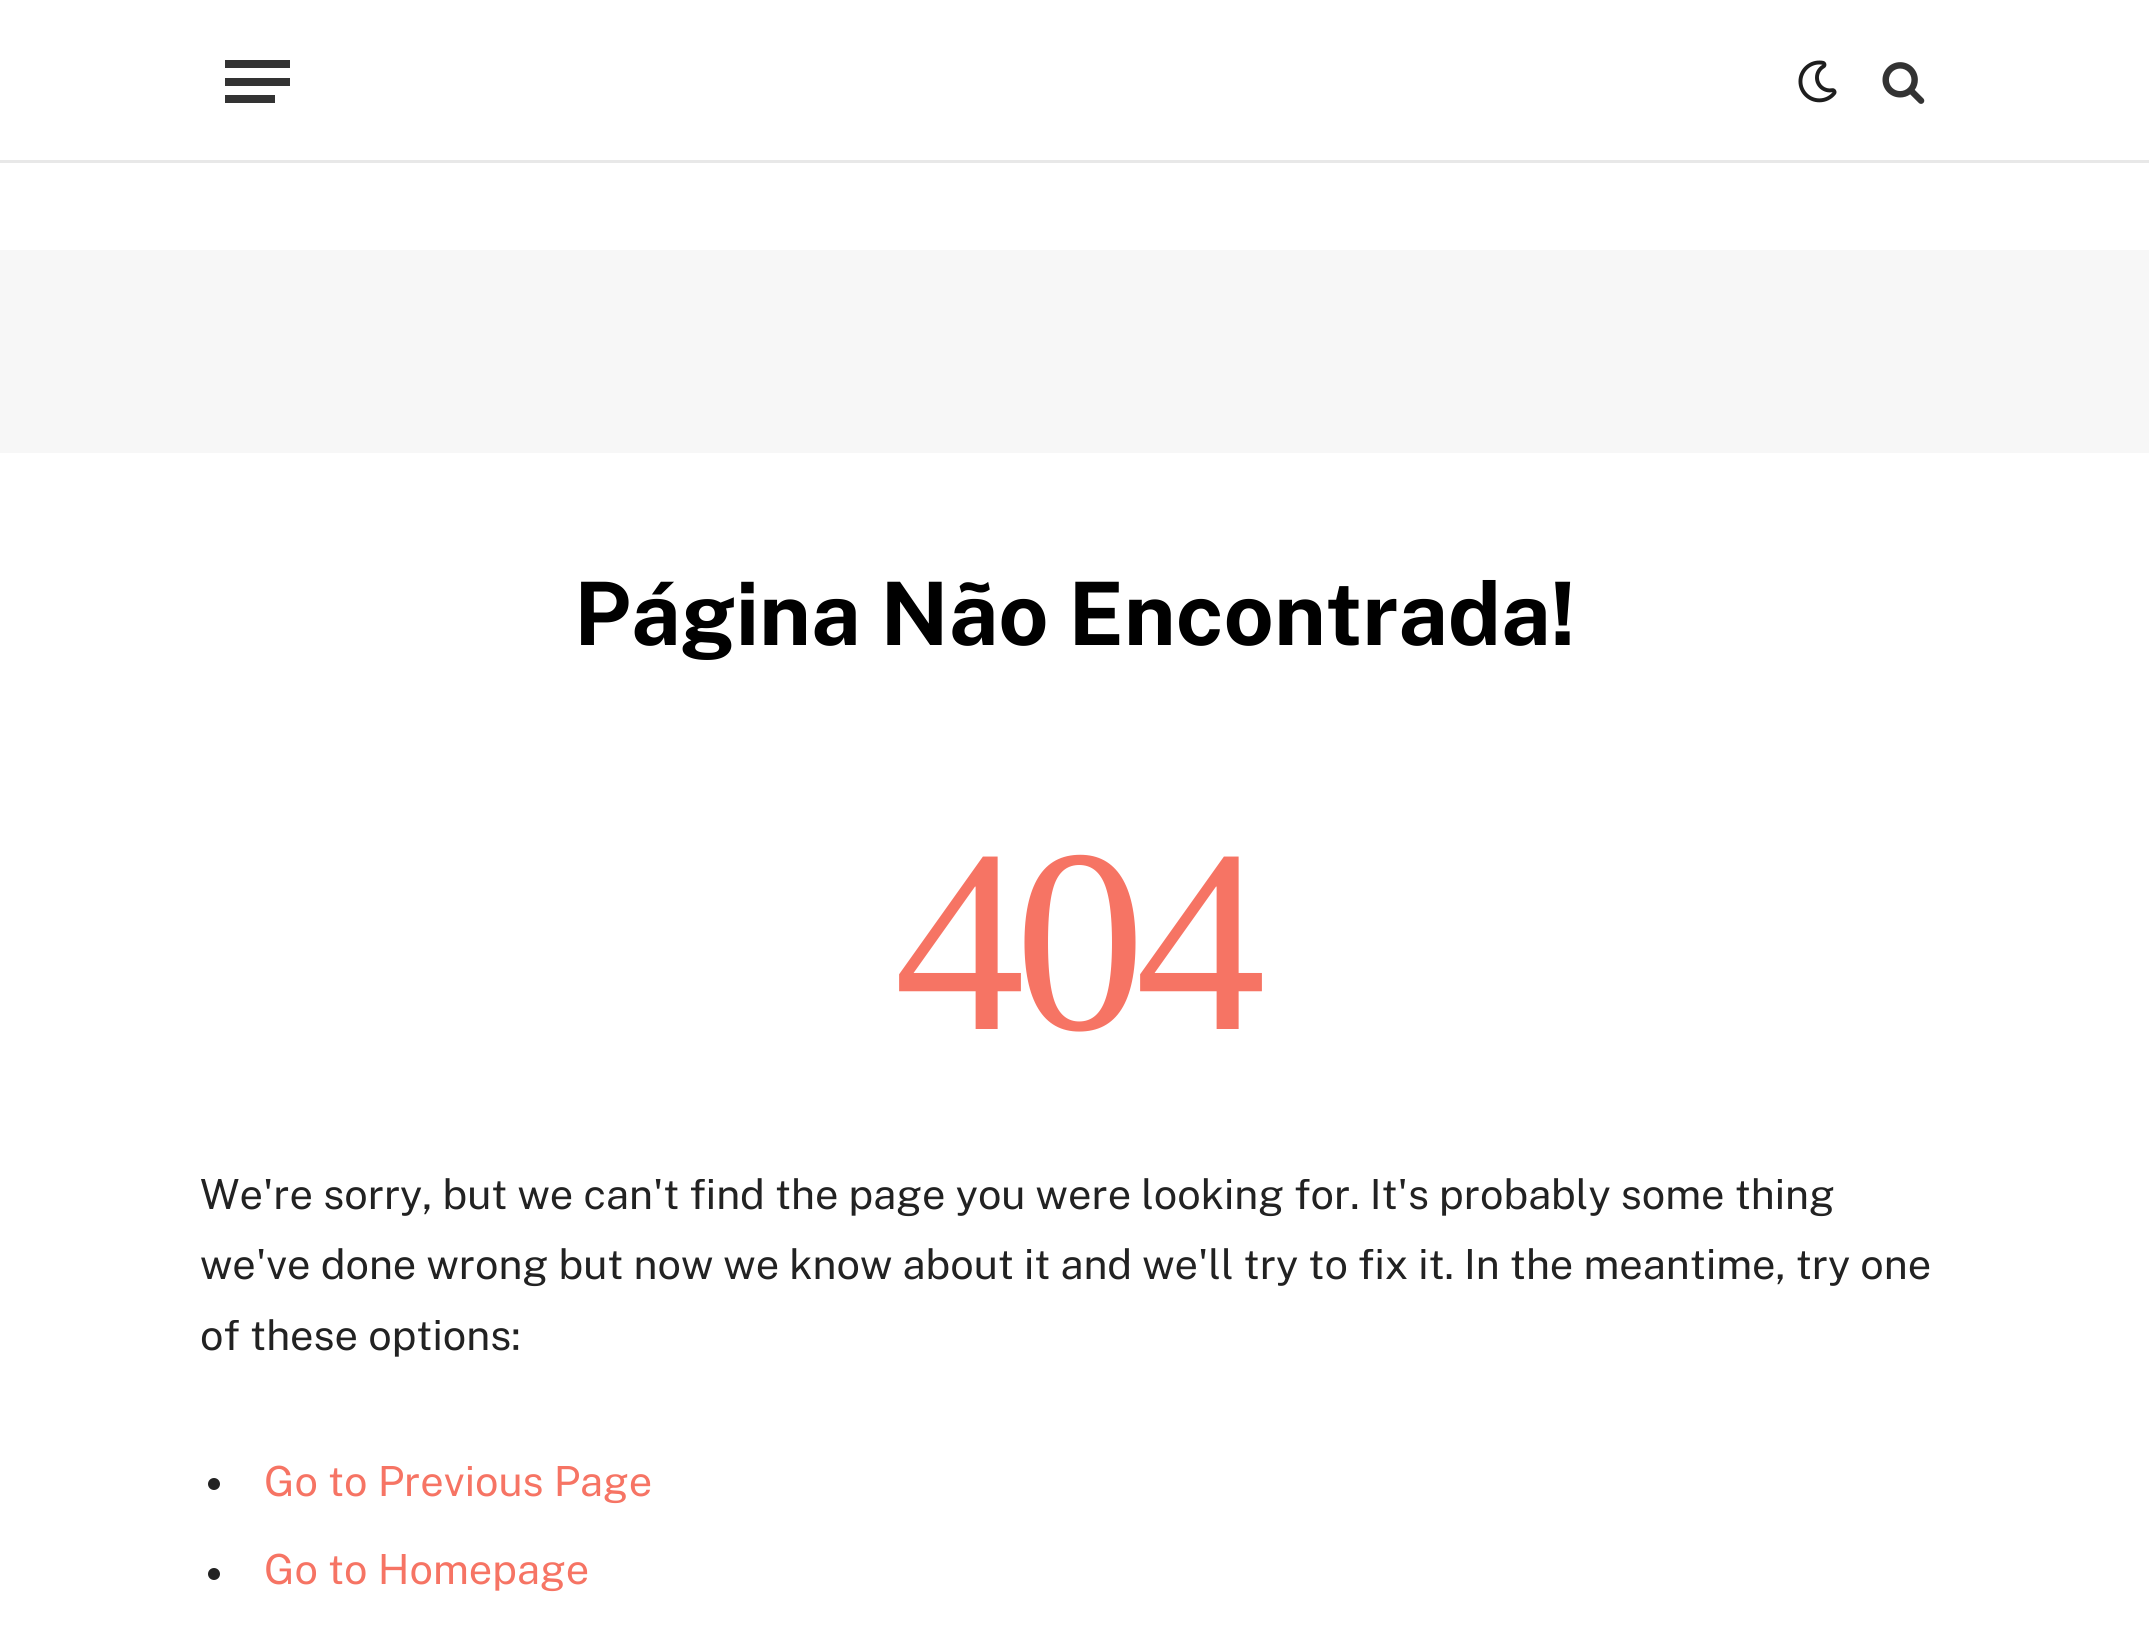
#include <cairo/cairo.h>
#include <math.h>
#include <stddef.h>


static void draw_spaced(cairo_t *cr, double x, double y, const char *s, double letter, double word) {
  cairo_move_to(cr, x, y);
  while (*s) {
    char ch[5] = {0};
    int n = 0;
    do ch[n++] = *s++; while ((*s & 0xC0) == 0x80);
    cairo_show_text(cr, ch);
    cairo_rel_move_to(cr, letter + word * (*ch == ' '), 0);
  }
}

static void draw_image(cairo_t *cr, const char *path, double x, double y, double w, double h) {
  cairo_surface_t *image = cairo_image_surface_create_from_png(path);
  cairo_save(cr);
  cairo_set_source_surface(cr, image, x, y);
  cairo_rectangle(cr, x, y, w, h);
  cairo_fill(cr);
  cairo_restore(cr);
  cairo_surface_destroy(image);
}

static void draw(cairo_t *cr) {
  cairo_set_source_rgb(cr, 1, 1, 1);
  cairo_paint(cr);
  cairo_set_source_rgb(cr, 232 / 255.0, 232 / 255.0, 232 / 255.0);
  cairo_rectangle(cr, 0, 160, 2149, 3);
  cairo_fill(cr);
  cairo_set_source_rgb(cr, 51 / 255.0, 51 / 255.0, 51 / 255.0);
  cairo_rectangle(cr, 225, 95, 50, 8);
  cairo_fill(cr);
  cairo_rectangle(cr, 225, 60, 65, 8);
  cairo_fill(cr);
  cairo_rectangle(cr, 225, 78, 65, 8);
  cairo_fill(cr);
  draw_image(cr, "images/1.png", 1798, 60, 39, 43);
  draw_image(cr, "images/2.png", 1882, 62, 43, 42);
  cairo_set_source_rgb(cr, 247 / 255.0, 247 / 255.0, 247 / 255.0);
  cairo_rectangle(cr, 0, 250, 2149, 203);
  cairo_fill(cr);
  cairo_set_source_rgb(cr, 34 / 255.0, 34 / 255.0, 34 / 255.0);
  cairo_arc(cr, 214, 1484, 6, 0, 2 * M_PI);
  cairo_fill(cr);
  cairo_arc(cr, 214, 1574, 6, 0, 2 * M_PI);
  cairo_fill(cr);
  cairo_select_font_face(cr, "Public Sans", CAIRO_FONT_SLANT_NORMAL, CAIRO_FONT_WEIGHT_BOLD);
  cairo_set_font_size(cr, 87.5);
  cairo_set_source_rgb(cr, 0, 0, 0);
  cairo_move_to(cr, 574, 645);
  cairo_show_text(cr, "Página Não Encontrada!");
  cairo_select_font_face(cr, "Liberation Serif", CAIRO_FONT_SLANT_NORMAL, CAIRO_FONT_WEIGHT_NORMAL);
  cairo_set_font_size(cr, 262);
  cairo_set_source_rgb(cr, 246 / 255.0, 116 / 255.0, 100 / 255.0);
  draw_spaced(cr, 894, 1029, "404", -10.5, 0);
  cairo_select_font_face(cr, "Public Sans", CAIRO_FONT_SLANT_NORMAL, CAIRO_FONT_WEIGHT_NORMAL);
  cairo_set_font_size(cr, 41.5);
  cairo_set_source_rgb(cr, 34 / 255.0, 34 / 255.0, 34 / 255.0);
  cairo_move_to(cr, 200, 1209);
  cairo_show_text(cr, "We're sorry, but we can't find the page you were looking for. It's probably some thing");
  cairo_move_to(cr, 200, 1279);
  cairo_show_text(cr, "we've done wrong but now we know about it and we'll try to fix it. In the meantime, try one");
  cairo_move_to(cr, 200, 1350);
  cairo_show_text(cr, "of these options:");
  cairo_set_source_rgb(cr, 246 / 255.0, 116 / 255.0, 100 / 255.0);
  cairo_move_to(cr, 264, 1496);
  cairo_show_text(cr, "Go to Previous Page");
  cairo_move_to(cr, 264, 1584);
  cairo_show_text(cr, "Go to Homepage");
}

int main(void) {
  cairo_surface_t *surface = cairo_image_surface_create(CAIRO_FORMAT_RGB24, 2149, 1631);
  cairo_t *cr = cairo_create(surface);
  cairo_font_options_t *options = cairo_font_options_create();
  cairo_font_options_set_hint_metrics(options, CAIRO_HINT_METRICS_OFF);
  cairo_font_options_set_hint_style(options, CAIRO_HINT_STYLE_NONE);
  cairo_set_font_options(cr, options);
  cairo_set_miter_limit(cr, 4);
  draw(cr);
  cairo_surface_write_to_png(surface, "out.png");
  cairo_font_options_destroy(options);
  cairo_destroy(cr);
  cairo_surface_destroy(surface);
  return 0;
}
